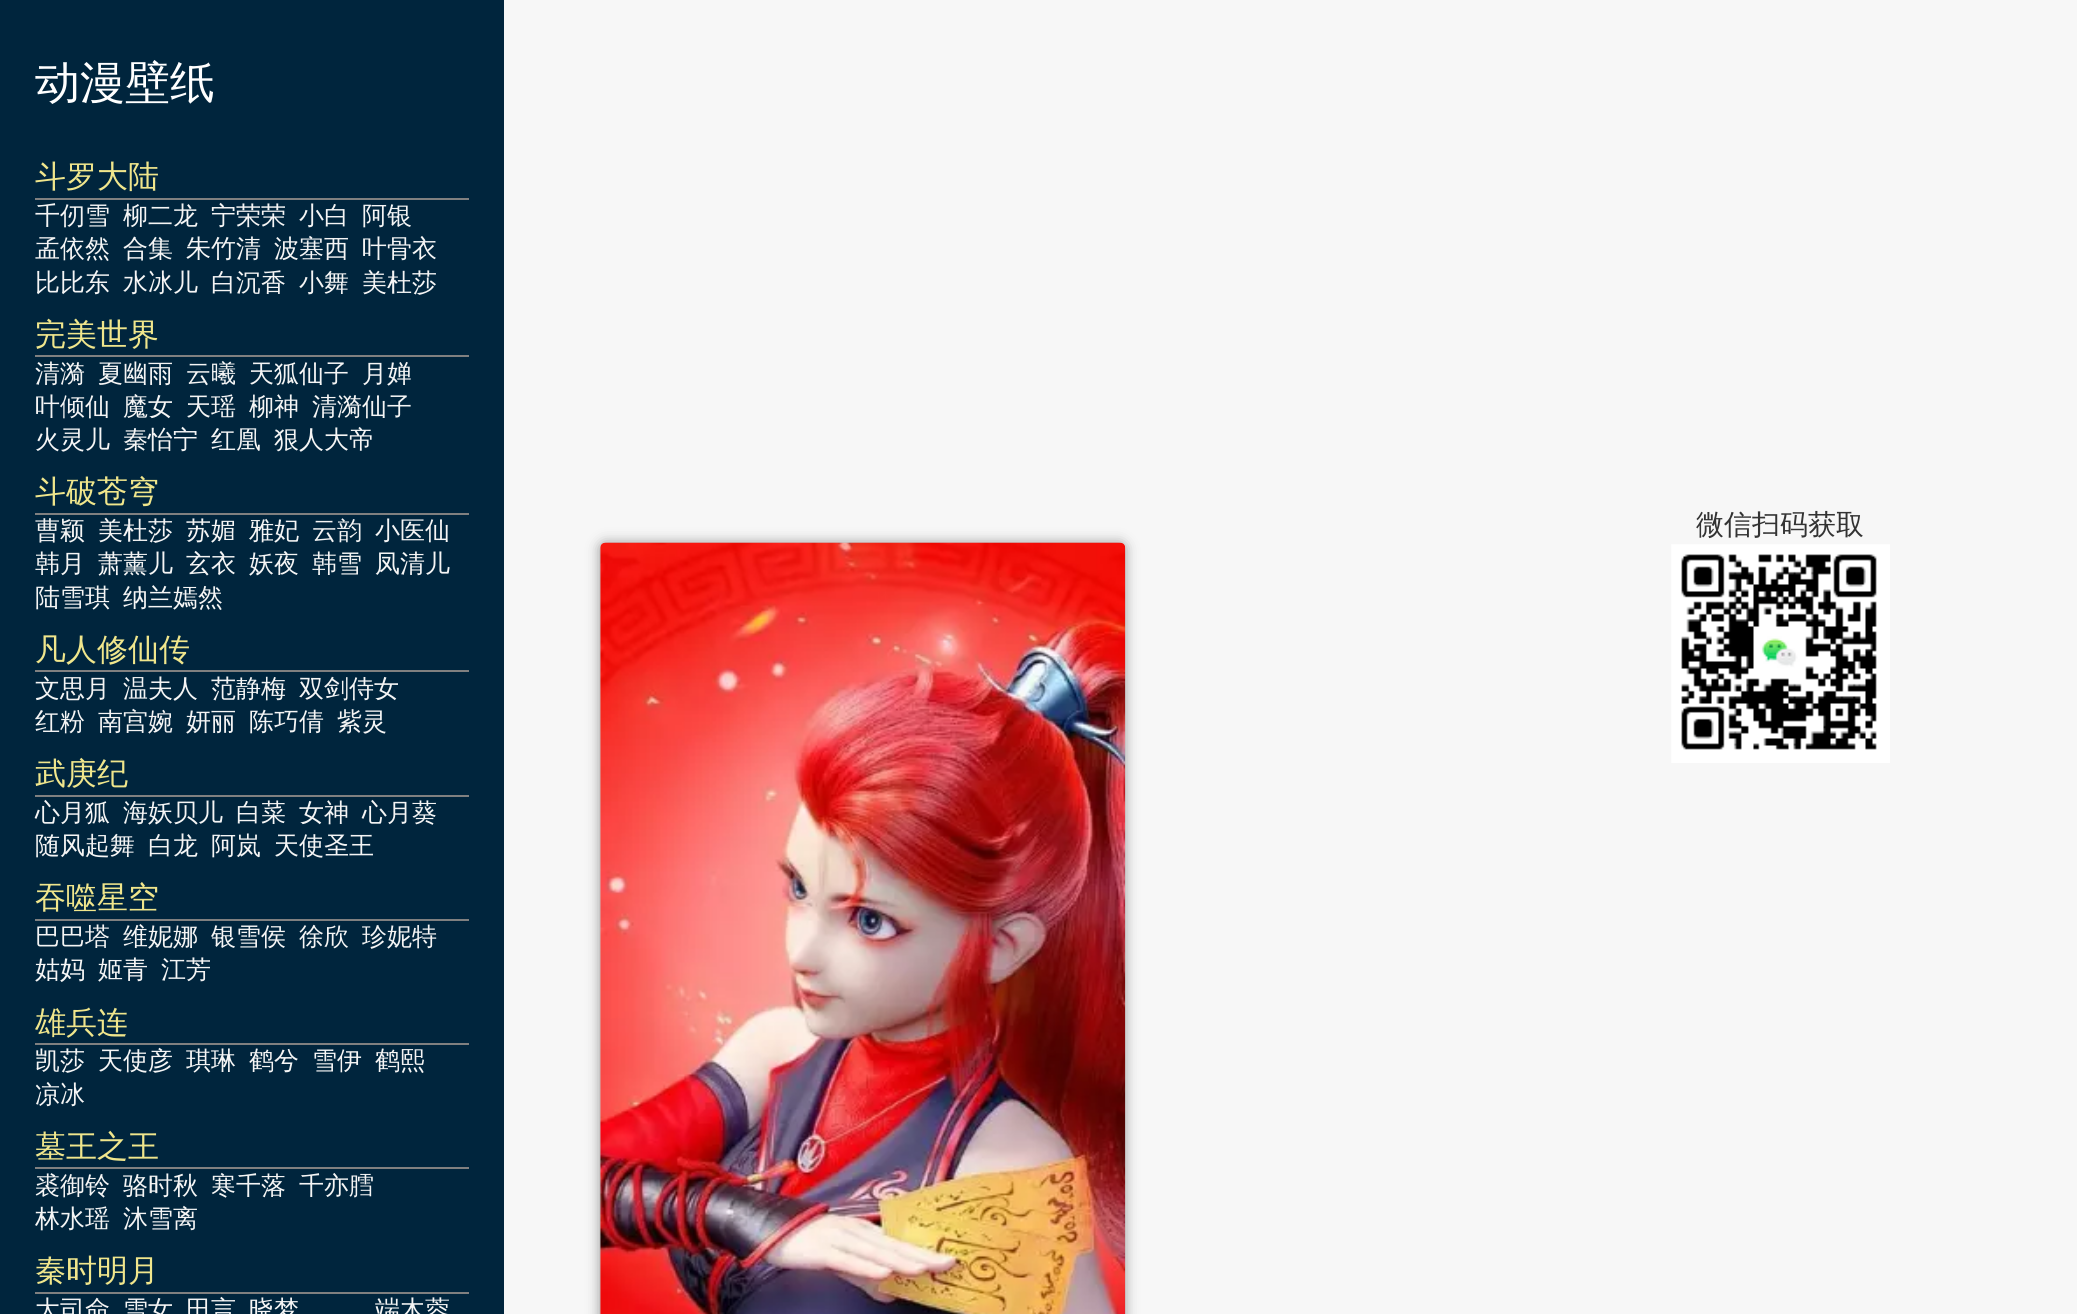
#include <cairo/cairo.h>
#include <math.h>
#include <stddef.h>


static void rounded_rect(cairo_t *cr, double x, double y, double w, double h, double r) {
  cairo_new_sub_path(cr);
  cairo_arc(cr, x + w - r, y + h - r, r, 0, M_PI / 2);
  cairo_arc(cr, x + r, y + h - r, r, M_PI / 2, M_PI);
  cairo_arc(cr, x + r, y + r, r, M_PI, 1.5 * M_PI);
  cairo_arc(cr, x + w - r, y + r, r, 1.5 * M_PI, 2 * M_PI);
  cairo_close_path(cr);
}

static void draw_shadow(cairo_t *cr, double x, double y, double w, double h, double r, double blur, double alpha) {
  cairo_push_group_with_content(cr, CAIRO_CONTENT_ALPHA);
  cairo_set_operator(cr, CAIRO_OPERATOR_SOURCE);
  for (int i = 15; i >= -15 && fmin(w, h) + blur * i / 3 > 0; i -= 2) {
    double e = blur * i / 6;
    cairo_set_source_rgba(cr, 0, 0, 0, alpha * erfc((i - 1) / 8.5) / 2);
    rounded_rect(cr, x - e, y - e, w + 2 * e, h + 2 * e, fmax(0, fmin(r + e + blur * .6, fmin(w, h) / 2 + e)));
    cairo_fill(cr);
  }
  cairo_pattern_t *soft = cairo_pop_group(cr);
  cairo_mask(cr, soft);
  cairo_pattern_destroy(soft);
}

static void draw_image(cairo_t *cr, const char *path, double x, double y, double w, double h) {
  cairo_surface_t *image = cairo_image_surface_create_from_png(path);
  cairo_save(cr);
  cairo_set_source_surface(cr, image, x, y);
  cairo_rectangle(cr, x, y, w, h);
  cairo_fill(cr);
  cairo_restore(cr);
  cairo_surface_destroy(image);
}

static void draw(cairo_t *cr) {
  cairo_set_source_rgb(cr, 247 / 255.0, 247 / 255.0, 247 / 255.0);
  cairo_paint(cr);
  cairo_set_source_rgb(cr, 0, 37 / 255.0, 61 / 255.0);
  cairo_rectangle(cr, 0, 0, 504, 1314);
  cairo_fill(cr);
  cairo_set_source_rgb(cr, 128 / 255.0, 128 / 255.0, 128 / 255.0);
  cairo_rectangle(cr, 35, 198, 434, 2);
  cairo_fill(cr);
  cairo_rectangle(cr, 35, 355, 434, 2);
  cairo_fill(cr);
  cairo_rectangle(cr, 35, 513, 434, 2);
  cairo_fill(cr);
  cairo_rectangle(cr, 35, 670, 434, 2);
  cairo_fill(cr);
  cairo_rectangle(cr, 35, 795, 434, 2);
  cairo_fill(cr);
  cairo_rectangle(cr, 35, 919, 434, 2);
  cairo_fill(cr);
  cairo_rectangle(cr, 35, 1043, 434, 2);
  cairo_fill(cr);
  cairo_rectangle(cr, 35, 1167, 434, 2);
  cairo_fill(cr);
  cairo_rectangle(cr, 35, 1292, 434, 2);
  cairo_fill(cr);
  cairo_set_source_rgb(cr, 150 / 255.0, 150 / 255.0, 150 / 255.0);
  draw_shadow(cr, 600, 543, 525, 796, 5, 6.5, 1);
  draw_image(cr, "images/1.png", 600, 542, 526, 772);
  draw_image(cr, "images/2.png", 1671, 544, 219, 219);
  cairo_select_font_face(cr, "WenQuanYi Zen Hei Medium", CAIRO_FONT_SLANT_NORMAL, CAIRO_FONT_WEIGHT_NORMAL);
  cairo_set_font_size(cr, 45);
  cairo_set_source_rgb(cr, 1, 1, 1);
  cairo_move_to(cr, 35, 98);
  cairo_show_text(cr, "动漫壁纸");
  cairo_set_font_size(cr, 31);
  cairo_set_source_rgb(cr, 240 / 255.0, 230 / 255.0, 140 / 255.0);
  cairo_move_to(cr, 35, 187);
  cairo_show_text(cr, "斗罗大陆");
  cairo_set_font_size(cr, 25);
  cairo_set_source_rgb(cr, 245 / 255.0, 245 / 255.0, 245 / 255.0);
  cairo_move_to(cr, 35, 224);
  cairo_show_text(cr, "千仞雪");
  cairo_move_to(cr, 123, 224);
  cairo_show_text(cr, "柳二龙");
  cairo_move_to(cr, 211, 224);
  cairo_show_text(cr, "宁荣荣");
  cairo_move_to(cr, 299, 224);
  cairo_show_text(cr, "小白");
  cairo_move_to(cr, 362, 224);
  cairo_show_text(cr, "阿银");
  cairo_move_to(cr, 35, 257);
  cairo_show_text(cr, "孟依然");
  cairo_move_to(cr, 123, 257);
  cairo_show_text(cr, "合集");
  cairo_move_to(cr, 186, 257);
  cairo_show_text(cr, "朱竹清");
  cairo_move_to(cr, 274, 257);
  cairo_show_text(cr, "波塞西");
  cairo_move_to(cr, 362, 257);
  cairo_show_text(cr, "叶骨衣");
  cairo_move_to(cr, 35, 291);
  cairo_show_text(cr, "比比东");
  cairo_move_to(cr, 123, 291);
  cairo_show_text(cr, "水冰儿");
  cairo_move_to(cr, 211, 291);
  cairo_show_text(cr, "白沉香");
  cairo_move_to(cr, 299, 291);
  cairo_show_text(cr, "小舞");
  cairo_move_to(cr, 362, 291);
  cairo_show_text(cr, "美杜莎");
  cairo_set_font_size(cr, 31);
  cairo_set_source_rgb(cr, 240 / 255.0, 230 / 255.0, 140 / 255.0);
  cairo_move_to(cr, 35, 345);
  cairo_show_text(cr, "完美世界");
  cairo_set_font_size(cr, 25);
  cairo_set_source_rgb(cr, 245 / 255.0, 245 / 255.0, 245 / 255.0);
  cairo_move_to(cr, 35, 382);
  cairo_show_text(cr, "清漪");
  cairo_move_to(cr, 98, 382);
  cairo_show_text(cr, "夏幽雨");
  cairo_move_to(cr, 186, 382);
  cairo_show_text(cr, "云曦");
  cairo_move_to(cr, 249, 382);
  cairo_show_text(cr, "天狐仙子");
  cairo_move_to(cr, 362, 382);
  cairo_show_text(cr, "月婵");
  cairo_move_to(cr, 35, 415);
  cairo_show_text(cr, "叶倾仙");
  cairo_move_to(cr, 123, 415);
  cairo_show_text(cr, "魔女");
  cairo_move_to(cr, 186, 415);
  cairo_show_text(cr, "天瑶");
  cairo_move_to(cr, 249, 415);
  cairo_show_text(cr, "柳神");
  cairo_move_to(cr, 312, 415);
  cairo_show_text(cr, "清漪仙子");
  cairo_move_to(cr, 35, 448);
  cairo_show_text(cr, "火灵儿");
  cairo_move_to(cr, 123, 448);
  cairo_show_text(cr, "秦怡宁");
  cairo_move_to(cr, 211, 448);
  cairo_show_text(cr, "红凰");
  cairo_move_to(cr, 274, 448);
  cairo_show_text(cr, "狠人大帝");
  cairo_set_font_size(cr, 31);
  cairo_set_source_rgb(cr, 240 / 255.0, 230 / 255.0, 140 / 255.0);
  cairo_move_to(cr, 35, 502);
  cairo_show_text(cr, "斗破苍穹");
  cairo_set_font_size(cr, 25);
  cairo_set_source_rgb(cr, 245 / 255.0, 245 / 255.0, 245 / 255.0);
  cairo_move_to(cr, 35, 539);
  cairo_show_text(cr, "曹颖");
  cairo_move_to(cr, 98, 539);
  cairo_show_text(cr, "美杜莎");
  cairo_move_to(cr, 186, 539);
  cairo_show_text(cr, "苏媚");
  cairo_move_to(cr, 249, 539);
  cairo_show_text(cr, "雅妃");
  cairo_move_to(cr, 312, 539);
  cairo_show_text(cr, "云韵");
  cairo_move_to(cr, 375, 539);
  cairo_show_text(cr, "小医仙");
  cairo_move_to(cr, 35, 572);
  cairo_show_text(cr, "韩月");
  cairo_move_to(cr, 98, 572);
  cairo_show_text(cr, "萧薰儿");
  cairo_move_to(cr, 186, 572);
  cairo_show_text(cr, "玄衣");
  cairo_move_to(cr, 249, 572);
  cairo_show_text(cr, "妖夜");
  cairo_move_to(cr, 312, 572);
  cairo_show_text(cr, "韩雪");
  cairo_move_to(cr, 375, 572);
  cairo_show_text(cr, "凤清儿");
  cairo_move_to(cr, 35, 606);
  cairo_show_text(cr, "陆雪琪");
  cairo_move_to(cr, 123, 606);
  cairo_show_text(cr, "纳兰嫣然");
  cairo_set_font_size(cr, 31);
  cairo_set_source_rgb(cr, 240 / 255.0, 230 / 255.0, 140 / 255.0);
  cairo_move_to(cr, 35, 660);
  cairo_show_text(cr, "凡人修仙传");
  cairo_set_font_size(cr, 25);
  cairo_set_source_rgb(cr, 245 / 255.0, 245 / 255.0, 245 / 255.0);
  cairo_move_to(cr, 35, 697);
  cairo_show_text(cr, "文思月");
  cairo_move_to(cr, 123, 697);
  cairo_show_text(cr, "温夫人");
  cairo_move_to(cr, 211, 697);
  cairo_show_text(cr, "范静梅");
  cairo_move_to(cr, 299, 697);
  cairo_show_text(cr, "双剑侍女");
  cairo_move_to(cr, 35, 730);
  cairo_show_text(cr, "红粉");
  cairo_move_to(cr, 98, 730);
  cairo_show_text(cr, "南宫婉");
  cairo_move_to(cr, 186, 730);
  cairo_show_text(cr, "妍丽");
  cairo_move_to(cr, 249, 730);
  cairo_show_text(cr, "陈巧倩");
  cairo_move_to(cr, 337, 730);
  cairo_show_text(cr, "紫灵");
  cairo_set_font_size(cr, 31);
  cairo_set_source_rgb(cr, 240 / 255.0, 230 / 255.0, 140 / 255.0);
  cairo_move_to(cr, 35, 784);
  cairo_show_text(cr, "武庚纪");
  cairo_set_font_size(cr, 25);
  cairo_set_source_rgb(cr, 245 / 255.0, 245 / 255.0, 245 / 255.0);
  cairo_move_to(cr, 35, 821);
  cairo_show_text(cr, "心月狐");
  cairo_move_to(cr, 123, 821);
  cairo_show_text(cr, "海妖贝儿");
  cairo_move_to(cr, 236, 821);
  cairo_show_text(cr, "白菜");
  cairo_move_to(cr, 299, 821);
  cairo_show_text(cr, "女神");
  cairo_move_to(cr, 362, 821);
  cairo_show_text(cr, "心月葵");
  cairo_move_to(cr, 35, 854);
  cairo_show_text(cr, "随风起舞");
  cairo_move_to(cr, 148, 854);
  cairo_show_text(cr, "白龙");
  cairo_move_to(cr, 211, 854);
  cairo_show_text(cr, "阿岚");
  cairo_move_to(cr, 274, 854);
  cairo_show_text(cr, "天使圣王");
  cairo_set_font_size(cr, 31);
  cairo_set_source_rgb(cr, 240 / 255.0, 230 / 255.0, 140 / 255.0);
  cairo_move_to(cr, 35, 908);
  cairo_show_text(cr, "吞噬星空");
  cairo_set_font_size(cr, 25);
  cairo_set_source_rgb(cr, 245 / 255.0, 245 / 255.0, 245 / 255.0);
  cairo_move_to(cr, 35, 945);
  cairo_show_text(cr, "巴巴塔");
  cairo_move_to(cr, 123, 945);
  cairo_show_text(cr, "维妮娜");
  cairo_move_to(cr, 211, 945);
  cairo_show_text(cr, "银雪侯");
  cairo_move_to(cr, 299, 945);
  cairo_show_text(cr, "徐欣");
  cairo_move_to(cr, 362, 945);
  cairo_show_text(cr, "珍妮特");
  cairo_move_to(cr, 35, 978);
  cairo_show_text(cr, "姑妈");
  cairo_move_to(cr, 98, 978);
  cairo_show_text(cr, "姬青");
  cairo_move_to(cr, 161, 978);
  cairo_show_text(cr, "江芳");
  cairo_set_font_size(cr, 31);
  cairo_set_source_rgb(cr, 240 / 255.0, 230 / 255.0, 140 / 255.0);
  cairo_move_to(cr, 35, 1033);
  cairo_show_text(cr, "雄兵连");
  cairo_set_font_size(cr, 25);
  cairo_set_source_rgb(cr, 245 / 255.0, 245 / 255.0, 245 / 255.0);
  cairo_move_to(cr, 35, 1069);
  cairo_show_text(cr, "凯莎");
  cairo_move_to(cr, 98, 1069);
  cairo_show_text(cr, "天使彦");
  cairo_move_to(cr, 186, 1069);
  cairo_show_text(cr, "琪琳");
  cairo_move_to(cr, 249, 1069);
  cairo_show_text(cr, "鹤兮");
  cairo_move_to(cr, 312, 1069);
  cairo_show_text(cr, "雪伊");
  cairo_move_to(cr, 375, 1069);
  cairo_show_text(cr, "鹤熙");
  cairo_move_to(cr, 35, 1103);
  cairo_show_text(cr, "凉冰");
  cairo_set_font_size(cr, 31);
  cairo_set_source_rgb(cr, 240 / 255.0, 230 / 255.0, 140 / 255.0);
  cairo_move_to(cr, 35, 1157);
  cairo_show_text(cr, "墓王之王");
  cairo_set_font_size(cr, 25);
  cairo_set_source_rgb(cr, 245 / 255.0, 245 / 255.0, 245 / 255.0);
  cairo_move_to(cr, 35, 1194);
  cairo_show_text(cr, "裘御铃");
  cairo_move_to(cr, 123, 1194);
  cairo_show_text(cr, "骆时秋");
  cairo_move_to(cr, 211, 1194);
  cairo_show_text(cr, "寒千落");
  cairo_move_to(cr, 299, 1194);
  cairo_show_text(cr, "千亦膤");
  cairo_move_to(cr, 35, 1227);
  cairo_show_text(cr, "林水瑶");
  cairo_move_to(cr, 123, 1227);
  cairo_show_text(cr, "沐雪离");
  cairo_set_font_size(cr, 31);
  cairo_set_source_rgb(cr, 240 / 255.0, 230 / 255.0, 140 / 255.0);
  cairo_move_to(cr, 35, 1281);
  cairo_show_text(cr, "秦时明月");
  cairo_set_font_size(cr, 25);
  cairo_set_source_rgb(cr, 245 / 255.0, 245 / 255.0, 245 / 255.0);
  cairo_move_to(cr, 35, 1318);
  cairo_show_text(cr, "大司命");
  cairo_move_to(cr, 123, 1318);
  cairo_show_text(cr, "雪女");
  cairo_move_to(cr, 186, 1318);
  cairo_show_text(cr, "田言");
  cairo_move_to(cr, 249, 1318);
  cairo_show_text(cr, "晓梦");
  cairo_move_to(cr, 375, 1318);
  cairo_show_text(cr, "端木蓉");
  cairo_set_font_size(cr, 28);
  cairo_set_source_rgb(cr, 51 / 255.0, 51 / 255.0, 51 / 255.0);
  cairo_move_to(cr, 1696, 534);
  cairo_show_text(cr, "微信扫码获取");
}

int main(void) {
  cairo_surface_t *surface = cairo_image_surface_create(CAIRO_FORMAT_RGB24, 2077, 1314);
  cairo_t *cr = cairo_create(surface);
  cairo_font_options_t *options = cairo_font_options_create();
  cairo_font_options_set_hint_metrics(options, CAIRO_HINT_METRICS_OFF);
  cairo_font_options_set_hint_style(options, CAIRO_HINT_STYLE_NONE);
  cairo_set_font_options(cr, options);
  cairo_set_miter_limit(cr, 4);
  draw(cr);
  cairo_surface_write_to_png(surface, "out.png");
  cairo_font_options_destroy(options);
  cairo_destroy(cr);
  cairo_surface_destroy(surface);
  return 0;
}
